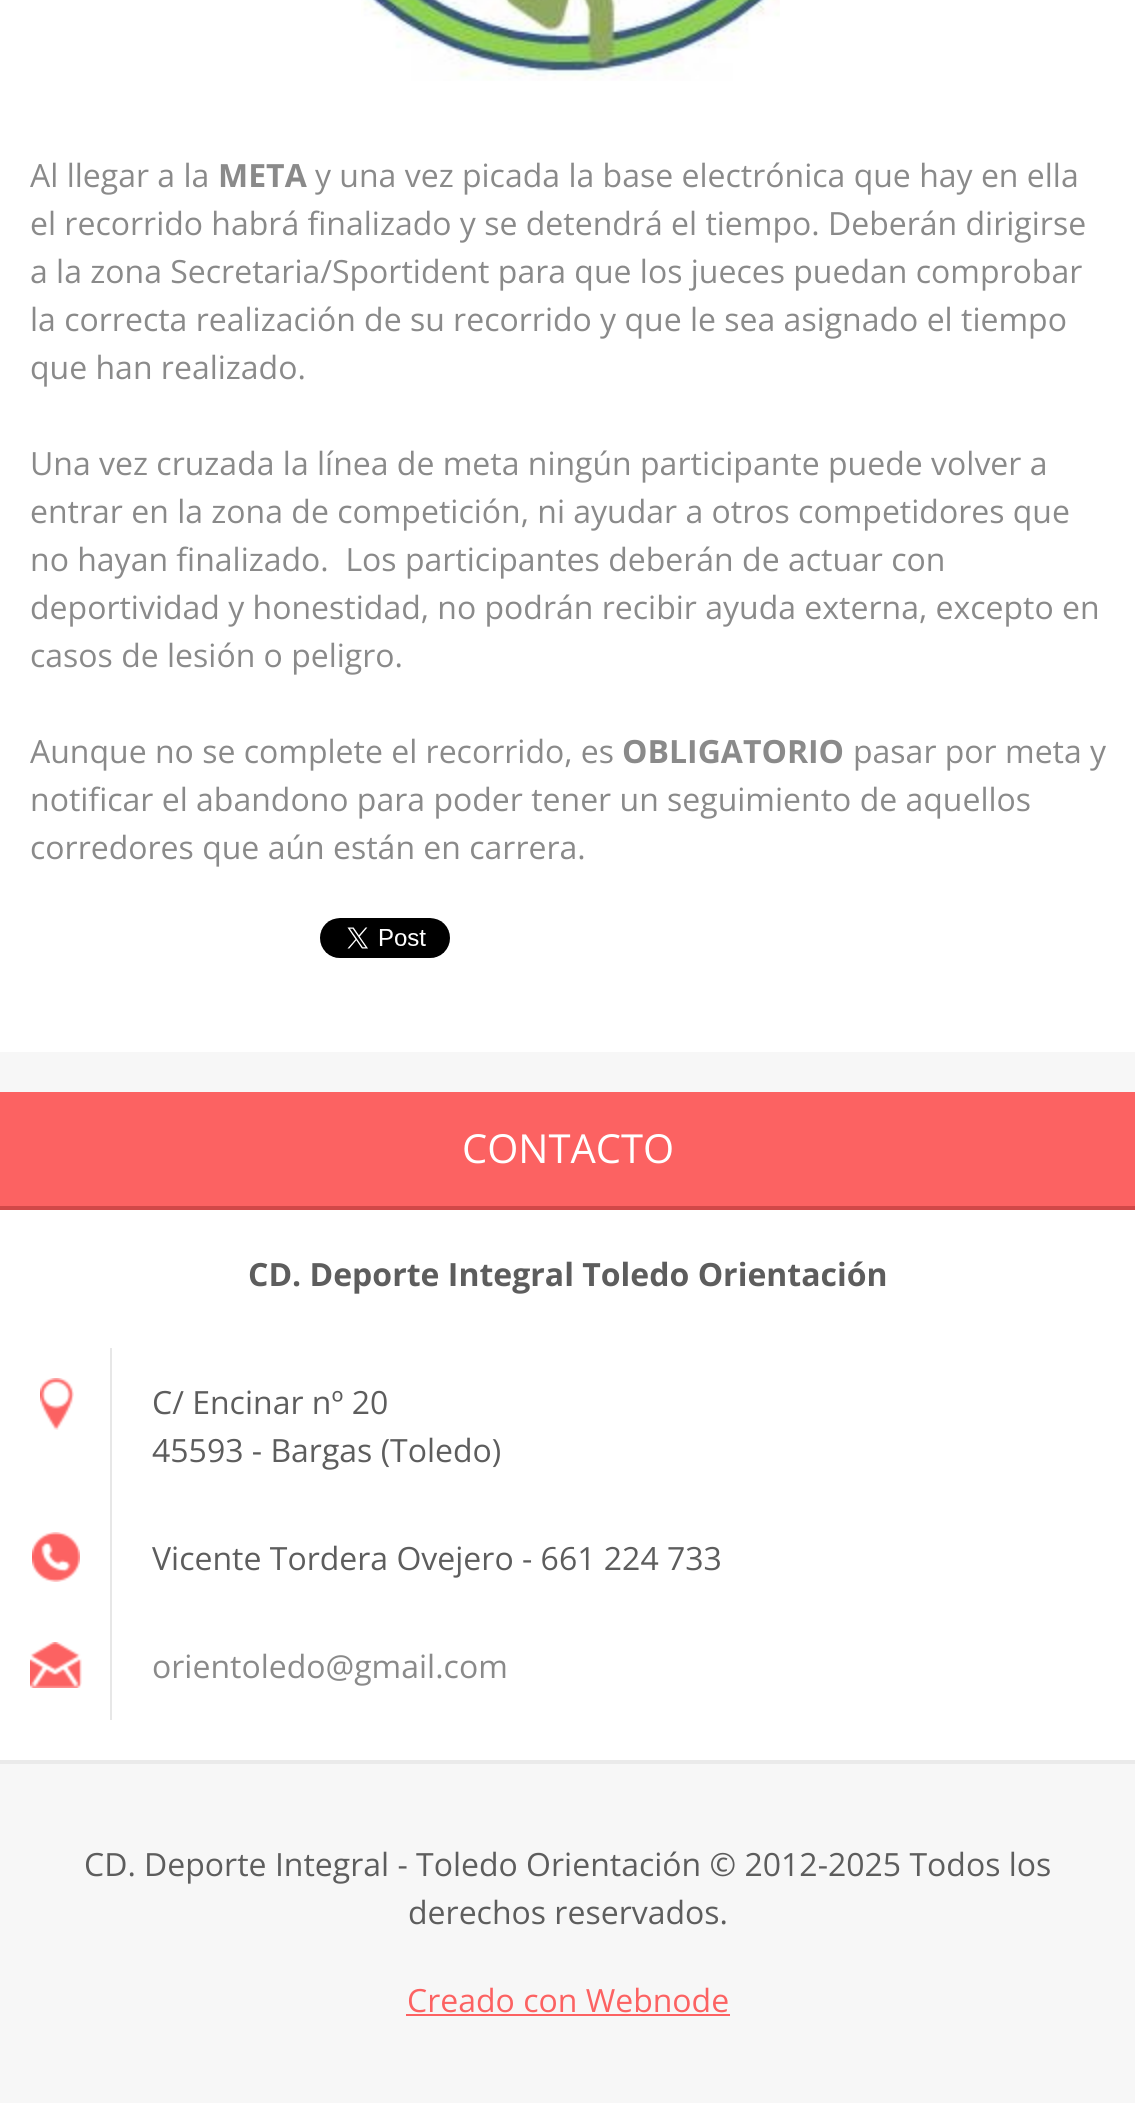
#include <cairo/cairo.h>
#include <math.h>
#include <stddef.h>


static void draw_image(cairo_t *cr, const char *path, double x, double y, double w, double h) {
  cairo_surface_t *image = cairo_image_surface_create_from_png(path);
  cairo_save(cr);
  cairo_set_source_surface(cr, image, x, y);
  cairo_rectangle(cr, x, y, w, h);
  cairo_fill(cr);
  cairo_restore(cr);
  cairo_surface_destroy(image);
}

static void draw(cairo_t *cr) {
  cairo_set_source_rgb(cr, 247 / 255.0, 247 / 255.0, 247 / 255.0);
  cairo_paint(cr);
  cairo_set_source_rgb(cr, 1, 1, 1);
  cairo_rectangle(cr, 0, 0, 1135, 1052);
  cairo_fill(cr);
  draw_image(cr, "images/1.png", 361, 0, 419, 81);
  draw_image(cr, "images/2.png", 320, 918, 130, 40);
  cairo_set_source_rgb(cr, 234 / 255.0, 234 / 255.0, 234 / 255.0);
  cairo_rectangle(cr, 0, 1760, 1135, 4);
  cairo_fill(cr);
  cairo_set_source_rgb(cr, 1, 1, 1);
  cairo_rectangle(cr, 0, 1210, 1135, 550);
  cairo_fill(cr);
  cairo_set_source_rgb(cr, 252 / 255.0, 98 / 255.0, 98 / 255.0);
  cairo_rectangle(cr, 0, 1092, 1135, 114);
  cairo_fill(cr);
  cairo_set_source_rgb(cr, 209 / 255.0, 72 / 255.0, 72 / 255.0);
  cairo_rectangle(cr, 0, 1206, 1135, 4);
  cairo_fill(cr);
  draw_image(cr, "images/3.png", 40, 1378, 34, 52);
  cairo_set_source_rgb(cr, 231 / 255.0, 231 / 255.0, 231 / 255.0);
  cairo_rectangle(cr, 110, 1348, 2, 372);
  cairo_fill(cr);
  draw_image(cr, "images/4.png", 32, 1532, 48, 50);
  draw_image(cr, "images/5.png", 30, 1642, 52, 46);
  cairo_set_source_rgb(cr, 252 / 255.0, 98 / 255.0, 98 / 255.0);
  cairo_rectangle(cr, 406, 2014, 324, 2);
  cairo_fill(cr);
  cairo_select_font_face(cr, "Open Sans", CAIRO_FONT_SLANT_NORMAL, CAIRO_FONT_WEIGHT_NORMAL);
  cairo_set_font_size(cr, 32);
  cairo_set_source_rgb(cr, 138 / 255.0, 138 / 255.0, 138 / 255.0);
  cairo_move_to(cr, 30, 187);
  cairo_show_text(cr, "Al llegar a la");
  cairo_select_font_face(cr, "Open Sans", CAIRO_FONT_SLANT_NORMAL, CAIRO_FONT_WEIGHT_BOLD);
  cairo_move_to(cr, 218, 187);
  cairo_show_text(cr, "META");
  cairo_select_font_face(cr, "Open Sans", CAIRO_FONT_SLANT_NORMAL, CAIRO_FONT_WEIGHT_NORMAL);
  cairo_move_to(cr, 315, 187);
  cairo_show_text(cr, "y una vez picada la base electrónica que hay en ella");
  cairo_move_to(cr, 30, 235);
  cairo_show_text(cr, "el recorrido habrá finalizado y se detendrá el tiempo. Deberán dirigirse");
  cairo_move_to(cr, 30, 283);
  cairo_show_text(cr, "a la zona Secretaria/Sportident para que los jueces puedan comprobar");
  cairo_move_to(cr, 30, 331);
  cairo_show_text(cr, "la correcta realización de su recorrido y que le sea asignado el tiempo");
  cairo_move_to(cr, 30, 379);
  cairo_show_text(cr, "que han realizado.");
  cairo_move_to(cr, 30, 475);
  cairo_show_text(cr, "Una vez cruzada la línea de meta ningún participante puede volver a");
  cairo_move_to(cr, 30, 523);
  cairo_show_text(cr, "entrar en la zona de competición, ni ayudar a otros competidores que");
  cairo_move_to(cr, 30, 571);
  cairo_show_text(cr, "no hayan finalizado.  Los participantes deberán de actuar con");
  cairo_move_to(cr, 30, 619);
  cairo_show_text(cr, "deportividad y honestidad, no podrán recibir ayuda externa, excepto en");
  cairo_move_to(cr, 30, 667);
  cairo_show_text(cr, "casos de lesión o peligro.");
  cairo_move_to(cr, 30, 763);
  cairo_show_text(cr, "Aunque no se complete el recorrido, es");
  cairo_select_font_face(cr, "Open Sans", CAIRO_FONT_SLANT_NORMAL, CAIRO_FONT_WEIGHT_BOLD);
  cairo_move_to(cr, 622, 763);
  cairo_show_text(cr, "OBLIGATORIO");
  cairo_select_font_face(cr, "Open Sans", CAIRO_FONT_SLANT_NORMAL, CAIRO_FONT_WEIGHT_NORMAL);
  cairo_move_to(cr, 853, 763);
  cairo_show_text(cr, "pasar por meta y");
  cairo_move_to(cr, 30, 811);
  cairo_show_text(cr, "notificar el abandono para poder tener un seguimiento de aquellos");
  cairo_move_to(cr, 30, 859);
  cairo_show_text(cr, "corredores que aún están en carrera.");
  cairo_set_font_size(cr, 40);
  cairo_set_source_rgb(cr, 1, 1, 1);
  cairo_move_to(cr, 462, 1163);
  cairo_show_text(cr, "CONTACTO");
  cairo_select_font_face(cr, "Open Sans", CAIRO_FONT_SLANT_NORMAL, CAIRO_FONT_WEIGHT_BOLD);
  cairo_set_font_size(cr, 32);
  cairo_set_source_rgb(cr, 93 / 255.0, 93 / 255.0, 93 / 255.0);
  cairo_move_to(cr, 248, 1286);
  cairo_show_text(cr, "CD. Deporte Integral Toledo Orientación");
  cairo_select_font_face(cr, "Open Sans", CAIRO_FONT_SLANT_NORMAL, CAIRO_FONT_WEIGHT_NORMAL);
  cairo_move_to(cr, 152, 1414);
  cairo_show_text(cr, "C/ Encinar nº 20");
  cairo_move_to(cr, 152, 1462);
  cairo_show_text(cr, "45593 - Bargas (Toledo)");
  cairo_move_to(cr, 152, 1570);
  cairo_show_text(cr, "Vicente Tordera Ovejero - 661 224 733");
  cairo_set_source_rgb(cr, 138 / 255.0, 138 / 255.0, 138 / 255.0);
  cairo_move_to(cr, 152, 1678);
  cairo_show_text(cr, "orientoledo@gmail.com");
  cairo_set_source_rgb(cr, 93 / 255.0, 93 / 255.0, 93 / 255.0);
  cairo_move_to(cr, 84, 1876);
  cairo_show_text(cr, "CD. Deporte Integral - Toledo Orientación © 2012-2025 Todos los");
  cairo_move_to(cr, 408, 1924);
  cairo_show_text(cr, "derechos reservados.");
  cairo_set_source_rgb(cr, 252 / 255.0, 98 / 255.0, 98 / 255.0);
  cairo_move_to(cr, 407, 2012);
  cairo_show_text(cr, "Creado con Webnode");
}

int main(void) {
  cairo_surface_t *surface = cairo_image_surface_create(CAIRO_FORMAT_RGB24, 1135, 2103);
  cairo_t *cr = cairo_create(surface);
  cairo_font_options_t *options = cairo_font_options_create();
  cairo_font_options_set_hint_metrics(options, CAIRO_HINT_METRICS_OFF);
  cairo_font_options_set_hint_style(options, CAIRO_HINT_STYLE_NONE);
  cairo_set_font_options(cr, options);
  cairo_set_miter_limit(cr, 4);
  draw(cr);
  cairo_surface_write_to_png(surface, "out.png");
  cairo_font_options_destroy(options);
  cairo_destroy(cr);
  cairo_surface_destroy(surface);
  return 0;
}
